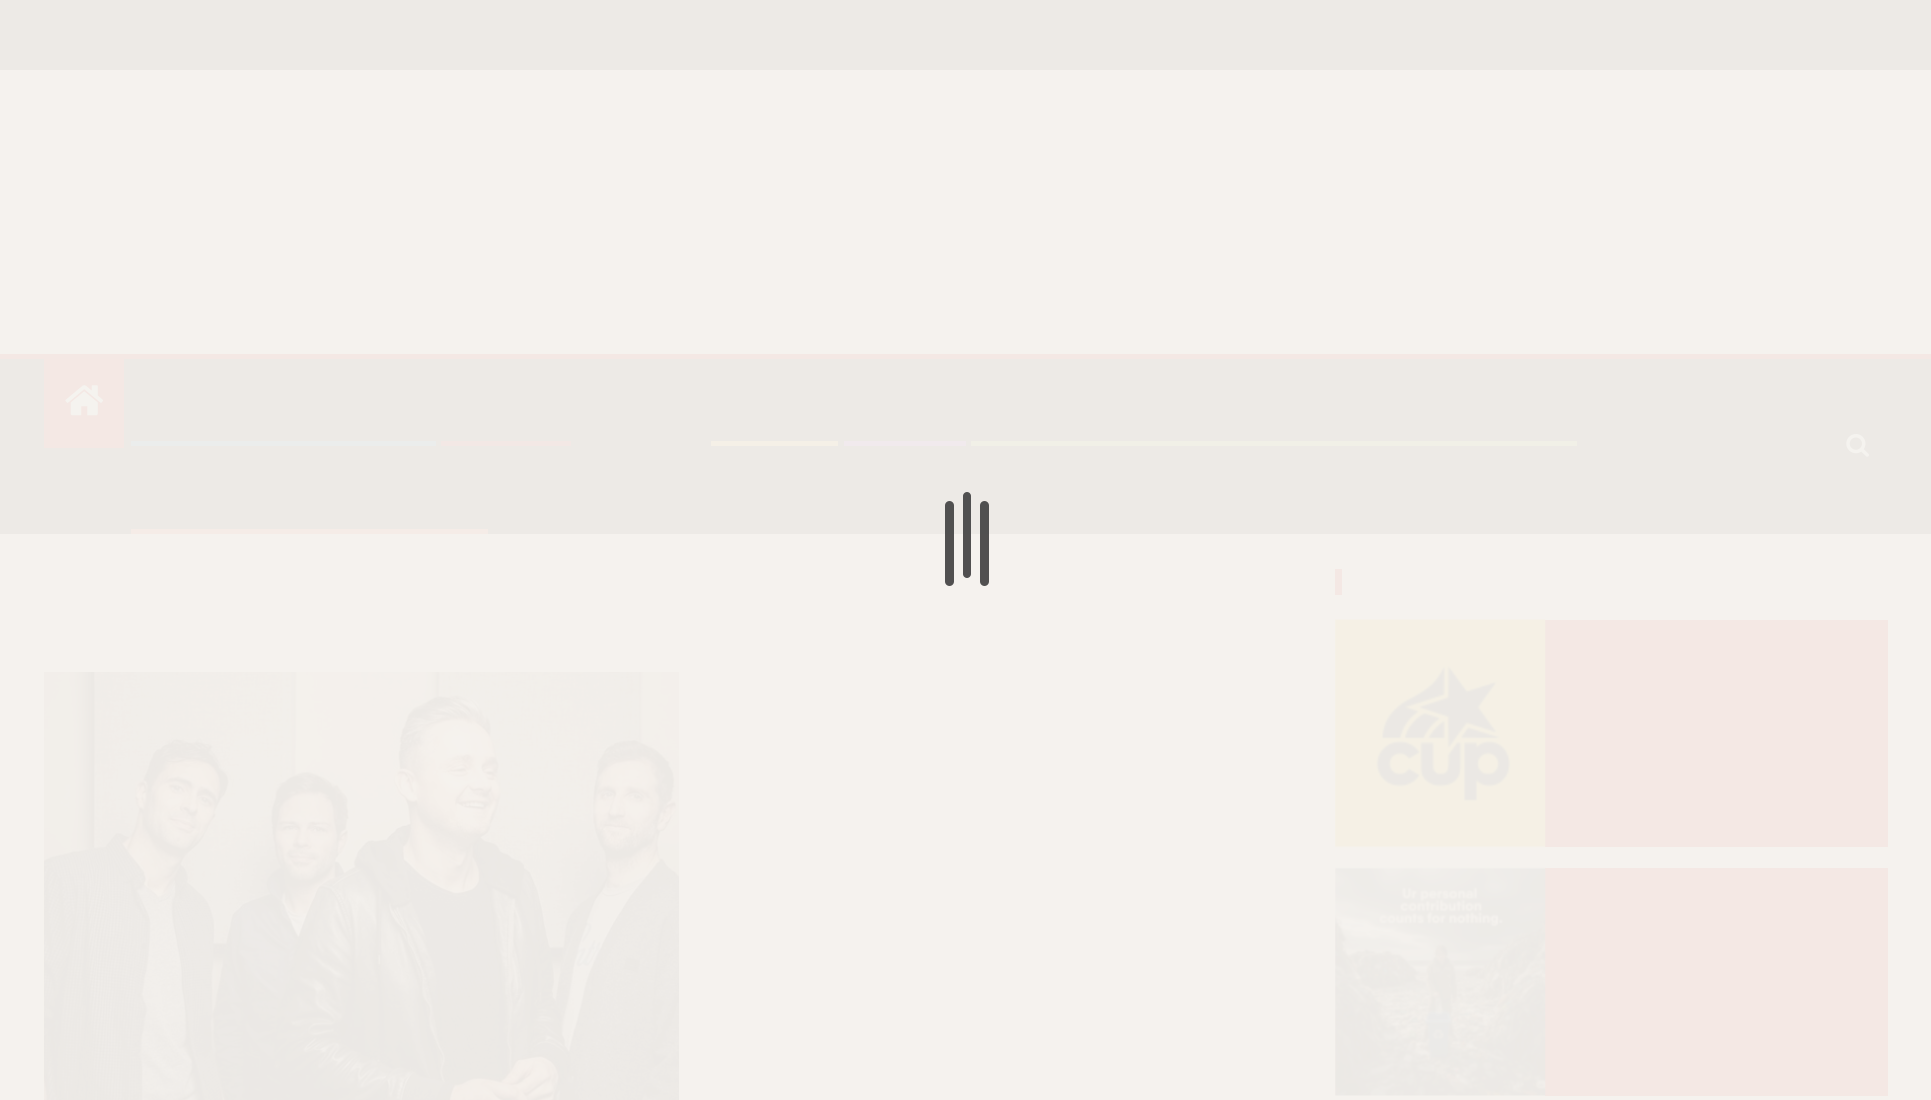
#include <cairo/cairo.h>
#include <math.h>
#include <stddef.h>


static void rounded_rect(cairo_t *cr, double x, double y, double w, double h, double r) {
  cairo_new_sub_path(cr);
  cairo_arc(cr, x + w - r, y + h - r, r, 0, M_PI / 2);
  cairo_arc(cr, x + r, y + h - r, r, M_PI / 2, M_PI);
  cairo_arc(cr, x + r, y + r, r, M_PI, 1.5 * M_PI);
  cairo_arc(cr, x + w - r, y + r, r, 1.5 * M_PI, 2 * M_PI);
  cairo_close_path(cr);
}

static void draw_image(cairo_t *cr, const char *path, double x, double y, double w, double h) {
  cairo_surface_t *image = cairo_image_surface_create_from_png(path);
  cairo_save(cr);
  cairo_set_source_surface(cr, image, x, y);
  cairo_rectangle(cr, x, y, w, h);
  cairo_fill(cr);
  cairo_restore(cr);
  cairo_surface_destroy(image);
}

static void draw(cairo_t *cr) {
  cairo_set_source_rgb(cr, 245 / 255.0, 242 / 255.0, 238 / 255.0);
  cairo_paint(cr);
  cairo_set_source_rgb(cr, 237 / 255.0, 234 / 255.0, 230 / 255.0);
  cairo_rectangle(cr, 0, 0, 1931, 70);
  cairo_fill(cr);
  cairo_rectangle(cr, 0, 359, 1931, 175);
  cairo_fill(cr);
  cairo_set_source_rgb(cr, 244 / 255.0, 232 / 255.0, 228 / 255.0);
  cairo_rectangle(cr, 0, 354, 1931, 5);
  cairo_fill(cr);
  cairo_rectangle(cr, 44, 359, 80, 89);
  cairo_fill(cr);
  draw_image(cr, "images/1.png", 65, 385, 39, 31);
  cairo_set_source_rgb(cr, 235 / 255.0, 237 / 255.0, 236 / 255.0);
  cairo_rectangle(cr, 131, 441, 305, 5);
  cairo_fill(cr);
  cairo_set_source_rgb(cr, 243 / 255.0, 232 / 255.0, 229 / 255.0);
  cairo_rectangle(cr, 441, 441, 130, 5);
  cairo_fill(cr);
  cairo_set_source_rgb(cr, 245 / 255.0, 240 / 255.0, 231 / 255.0);
  cairo_rectangle(cr, 711, 441, 127, 5);
  cairo_fill(cr);
  cairo_set_source_rgb(cr, 241 / 255.0, 234 / 255.0, 237 / 255.0);
  cairo_rectangle(cr, 844, 441, 122, 5);
  cairo_fill(cr);
  cairo_set_source_rgb(cr, 241 / 255.0, 240 / 255.0, 231 / 255.0);
  cairo_rectangle(cr, 971, 441, 606, 5);
  cairo_fill(cr);
  cairo_set_source_rgb(cr, 245 / 255.0, 236 / 255.0, 231 / 255.0);
  cairo_rectangle(cr, 131, 529, 357, 5);
  cairo_fill(cr);
  draw_image(cr, "images/2.png", 1846, 434, 23, 23);
  draw_image(cr, "images/3.png", 43, 672, 636, 428);
  cairo_set_source_rgb(cr, 244 / 255.0, 232 / 255.0, 228 / 255.0);
  cairo_rectangle(cr, 1335, 569, 7, 26);
  cairo_fill(cr);
  cairo_rectangle(cr, 1545, 620, 343, 227);
  cairo_fill(cr);
  draw_image(cr, "images/4.png", 1335, 619, 211, 229);
  cairo_rectangle(cr, 1545, 868, 343, 228);
  cairo_fill(cr);
  draw_image(cr, "images/5.png", 1335, 867, 211, 229);
  cairo_set_source_rgba(cr, 74 / 255.0, 74 / 255.0, 74 / 255.0, 0.96);
  rounded_rect(cr, 963, 492, 8, 86, 4);
  cairo_fill(cr);
  rounded_rect(cr, 945, 501, 9, 85, 4.5);
  cairo_fill(cr);
  rounded_rect(cr, 980, 501, 9, 85, 4.5);
  cairo_fill(cr);
}

int main(void) {
  cairo_surface_t *surface = cairo_image_surface_create(CAIRO_FORMAT_RGB24, 1931, 1100);
  cairo_t *cr = cairo_create(surface);
  cairo_font_options_t *options = cairo_font_options_create();
  cairo_font_options_set_hint_metrics(options, CAIRO_HINT_METRICS_OFF);
  cairo_font_options_set_hint_style(options, CAIRO_HINT_STYLE_NONE);
  cairo_set_font_options(cr, options);
  cairo_set_miter_limit(cr, 4);
  draw(cr);
  cairo_surface_write_to_png(surface, "out.png");
  cairo_font_options_destroy(options);
  cairo_destroy(cr);
  cairo_surface_destroy(surface);
  return 0;
}
